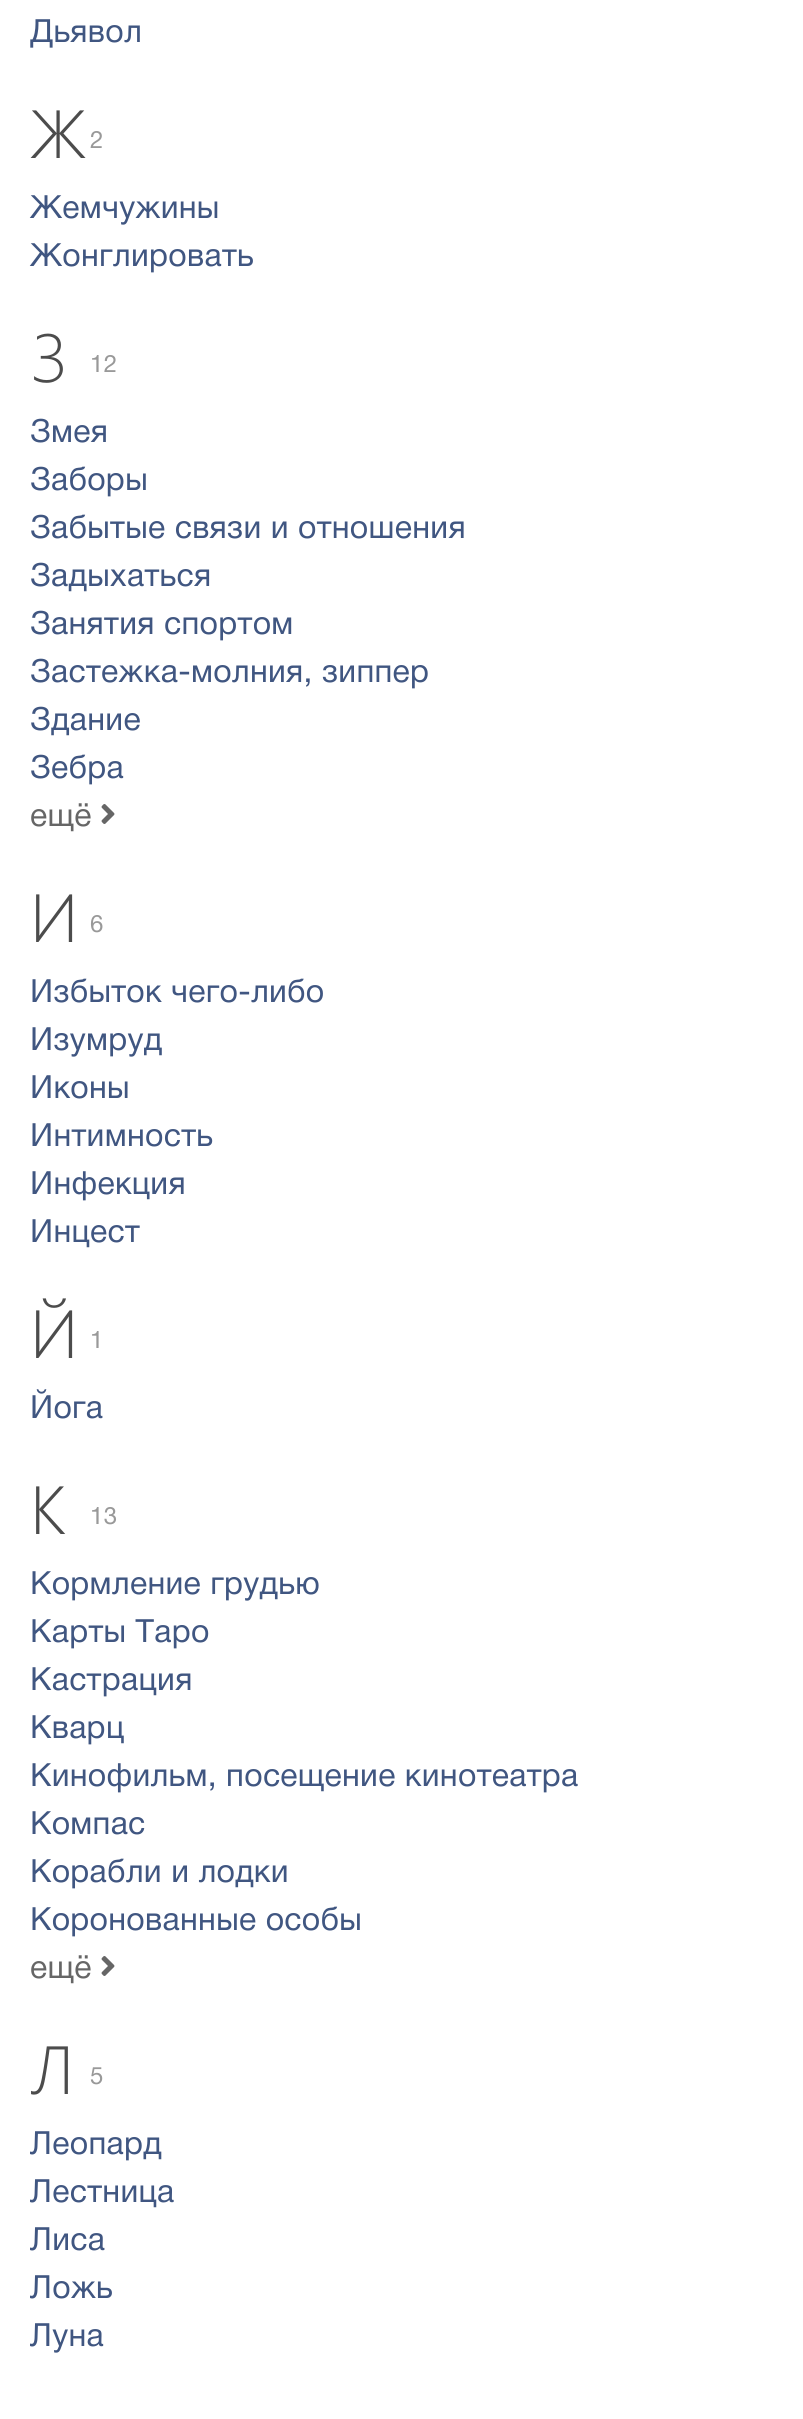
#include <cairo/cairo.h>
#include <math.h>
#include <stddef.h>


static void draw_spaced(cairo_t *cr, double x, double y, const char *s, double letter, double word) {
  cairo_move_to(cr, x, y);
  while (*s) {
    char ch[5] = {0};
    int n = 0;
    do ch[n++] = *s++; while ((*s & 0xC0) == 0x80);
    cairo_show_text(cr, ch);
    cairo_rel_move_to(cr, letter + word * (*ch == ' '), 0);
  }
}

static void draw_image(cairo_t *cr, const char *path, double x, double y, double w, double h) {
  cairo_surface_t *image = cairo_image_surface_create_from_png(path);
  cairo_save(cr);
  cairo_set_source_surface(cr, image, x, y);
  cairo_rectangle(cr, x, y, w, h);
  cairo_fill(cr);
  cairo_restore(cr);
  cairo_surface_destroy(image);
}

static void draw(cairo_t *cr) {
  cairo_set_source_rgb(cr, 1, 1, 1);
  cairo_paint(cr);
  draw_image(cr, "images/1.png", 101, 804, 14, 20);
  draw_image(cr, "images/1.png", 101, 1956, 14, 20);
  cairo_select_font_face(cr, "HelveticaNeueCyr", CAIRO_FONT_SLANT_NORMAL, CAIRO_FONT_WEIGHT_NORMAL);
  cairo_set_font_size(cr, 32);
  cairo_set_source_rgb(cr, 64 / 255.0, 86 / 255.0, 129 / 255.0);
  draw_spaced(cr, 30, 42, "Дьявол", 0.3, 0);
  cairo_select_font_face(cr, "Segoe UI Light", CAIRO_FONT_SLANT_NORMAL, CAIRO_FONT_WEIGHT_NORMAL);
  cairo_set_font_size(cr, 68);
  cairo_set_source_rgb(cr, 76 / 255.0, 76 / 255.0, 76 / 255.0);
  draw_spaced(cr, 30, 158, "Ж", 0.3, 0);
  cairo_select_font_face(cr, "HelveticaNeueCyr", CAIRO_FONT_SLANT_NORMAL, CAIRO_FONT_WEIGHT_NORMAL);
  cairo_set_font_size(cr, 24);
  cairo_set_source_rgb(cr, 153 / 255.0, 153 / 255.0, 153 / 255.0);
  draw_spaced(cr, 90, 148, "2", 0.3, 0);
  cairo_set_font_size(cr, 32);
  cairo_set_source_rgb(cr, 64 / 255.0, 86 / 255.0, 129 / 255.0);
  draw_spaced(cr, 30, 218, "Жемчужины", 0.3, 0);
  draw_spaced(cr, 30, 266, "Жонглировать", 0.3, 0);
  cairo_select_font_face(cr, "Segoe UI Light", CAIRO_FONT_SLANT_NORMAL, CAIRO_FONT_WEIGHT_NORMAL);
  cairo_set_font_size(cr, 68);
  cairo_set_source_rgb(cr, 76 / 255.0, 76 / 255.0, 76 / 255.0);
  draw_spaced(cr, 30, 382, "З", 0.3, 0);
  cairo_select_font_face(cr, "HelveticaNeueCyr", CAIRO_FONT_SLANT_NORMAL, CAIRO_FONT_WEIGHT_NORMAL);
  cairo_set_font_size(cr, 24);
  cairo_set_source_rgb(cr, 153 / 255.0, 153 / 255.0, 153 / 255.0);
  draw_spaced(cr, 90, 372, "12", 0.3, 0);
  cairo_set_font_size(cr, 32);
  cairo_set_source_rgb(cr, 64 / 255.0, 86 / 255.0, 129 / 255.0);
  draw_spaced(cr, 30, 442, "Змея", 0.3, 0);
  draw_spaced(cr, 30, 490, "Заборы", 0.3, 0);
  draw_spaced(cr, 30, 538, "Забытые связи и отношения", 0.3, 0);
  draw_spaced(cr, 30, 586, "Задыхаться", 0.3, 0);
  draw_spaced(cr, 30, 634, "Занятия спортом", 0.3, 0);
  draw_spaced(cr, 30, 682, "Застежка-молния, зиппер", 0.3, 0);
  draw_spaced(cr, 30, 730, "Здание", 0.3, 0);
  draw_spaced(cr, 30, 778, "Зебра", 0.3, 0);
  cairo_set_source_rgb(cr, 102 / 255.0, 102 / 255.0, 102 / 255.0);
  draw_spaced(cr, 30, 826, "ещё", 0.3, 0);
  cairo_select_font_face(cr, "Segoe UI Light", CAIRO_FONT_SLANT_NORMAL, CAIRO_FONT_WEIGHT_NORMAL);
  cairo_set_font_size(cr, 68);
  cairo_set_source_rgb(cr, 76 / 255.0, 76 / 255.0, 76 / 255.0);
  draw_spaced(cr, 30, 942, "И", 0.3, 0);
  cairo_select_font_face(cr, "HelveticaNeueCyr", CAIRO_FONT_SLANT_NORMAL, CAIRO_FONT_WEIGHT_NORMAL);
  cairo_set_font_size(cr, 24);
  cairo_set_source_rgb(cr, 153 / 255.0, 153 / 255.0, 153 / 255.0);
  draw_spaced(cr, 90, 932, "6", 0.3, 0);
  cairo_set_font_size(cr, 32);
  cairo_set_source_rgb(cr, 64 / 255.0, 86 / 255.0, 129 / 255.0);
  draw_spaced(cr, 30, 1002, "Избыток чего-либо", 0.3, 0);
  draw_spaced(cr, 30, 1050, "Изумруд", 0.3, 0);
  draw_spaced(cr, 30, 1098, "Иконы", 0.3, 0);
  draw_spaced(cr, 30, 1146, "Интимность", 0.3, 0);
  draw_spaced(cr, 30, 1194, "Инфекция", 0.3, 0);
  draw_spaced(cr, 30, 1242, "Инцест", 0.3, 0);
  cairo_select_font_face(cr, "Segoe UI Light", CAIRO_FONT_SLANT_NORMAL, CAIRO_FONT_WEIGHT_NORMAL);
  cairo_set_font_size(cr, 68);
  cairo_set_source_rgb(cr, 76 / 255.0, 76 / 255.0, 76 / 255.0);
  draw_spaced(cr, 30, 1358, "Й", 0.3, 0);
  cairo_select_font_face(cr, "HelveticaNeueCyr", CAIRO_FONT_SLANT_NORMAL, CAIRO_FONT_WEIGHT_NORMAL);
  cairo_set_font_size(cr, 24);
  cairo_set_source_rgb(cr, 153 / 255.0, 153 / 255.0, 153 / 255.0);
  draw_spaced(cr, 90, 1348, "1", 0.3, 0);
  cairo_set_font_size(cr, 32);
  cairo_set_source_rgb(cr, 64 / 255.0, 86 / 255.0, 129 / 255.0);
  draw_spaced(cr, 30, 1418, "Йога", 0.3, 0);
  cairo_select_font_face(cr, "Segoe UI Light", CAIRO_FONT_SLANT_NORMAL, CAIRO_FONT_WEIGHT_NORMAL);
  cairo_set_font_size(cr, 68);
  cairo_set_source_rgb(cr, 76 / 255.0, 76 / 255.0, 76 / 255.0);
  draw_spaced(cr, 30, 1534, "К", 0.3, 0);
  cairo_select_font_face(cr, "HelveticaNeueCyr", CAIRO_FONT_SLANT_NORMAL, CAIRO_FONT_WEIGHT_NORMAL);
  cairo_set_font_size(cr, 24);
  cairo_set_source_rgb(cr, 153 / 255.0, 153 / 255.0, 153 / 255.0);
  draw_spaced(cr, 90, 1524, "13", 0.3, 0);
  cairo_set_font_size(cr, 32);
  cairo_set_source_rgb(cr, 64 / 255.0, 86 / 255.0, 129 / 255.0);
  draw_spaced(cr, 30, 1594, "Кормление грудью", 0.3, 0);
  draw_spaced(cr, 30, 1642, "Карты Таро", 0.3, 0);
  draw_spaced(cr, 30, 1690, "Кастрация", 0.3, 0);
  draw_spaced(cr, 30, 1738, "Кварц", 0.3, 0);
  draw_spaced(cr, 30, 1786, "Кинофильм, посещение кинотеатра", 0.3, 0);
  draw_spaced(cr, 30, 1834, "Компас", 0.3, 0);
  draw_spaced(cr, 30, 1882, "Корабли и лодки", 0.3, 0);
  draw_spaced(cr, 30, 1930, "Коронованные особы", 0.3, 0);
  cairo_set_source_rgb(cr, 102 / 255.0, 102 / 255.0, 102 / 255.0);
  draw_spaced(cr, 30, 1978, "ещё", 0.3, 0);
  cairo_select_font_face(cr, "Segoe UI Light", CAIRO_FONT_SLANT_NORMAL, CAIRO_FONT_WEIGHT_NORMAL);
  cairo_set_font_size(cr, 68);
  cairo_set_source_rgb(cr, 76 / 255.0, 76 / 255.0, 76 / 255.0);
  draw_spaced(cr, 30, 2094, "Л", 0.3, 0);
  cairo_select_font_face(cr, "HelveticaNeueCyr", CAIRO_FONT_SLANT_NORMAL, CAIRO_FONT_WEIGHT_NORMAL);
  cairo_set_font_size(cr, 24);
  cairo_set_source_rgb(cr, 153 / 255.0, 153 / 255.0, 153 / 255.0);
  draw_spaced(cr, 90, 2084, "5", 0.3, 0);
  cairo_set_font_size(cr, 32);
  cairo_set_source_rgb(cr, 64 / 255.0, 86 / 255.0, 129 / 255.0);
  draw_spaced(cr, 30, 2154, "Леопард", 0.3, 0);
  draw_spaced(cr, 30, 2202, "Лестница", 0.3, 0);
  draw_spaced(cr, 30, 2250, "Лиса", 0.3, 0);
  draw_spaced(cr, 30, 2298, "Ложь", 0.3, 0);
  draw_spaced(cr, 30, 2346, "Луна", 0.3, 0);
}

int main(void) {
  cairo_surface_t *surface = cairo_image_surface_create(CAIRO_FORMAT_RGB24, 803, 2419);
  cairo_t *cr = cairo_create(surface);
  cairo_font_options_t *options = cairo_font_options_create();
  cairo_font_options_set_hint_metrics(options, CAIRO_HINT_METRICS_OFF);
  cairo_font_options_set_hint_style(options, CAIRO_HINT_STYLE_NONE);
  cairo_set_font_options(cr, options);
  cairo_set_miter_limit(cr, 4);
  draw(cr);
  cairo_surface_write_to_png(surface, "out.png");
  cairo_font_options_destroy(options);
  cairo_destroy(cr);
  cairo_surface_destroy(surface);
  return 0;
}
